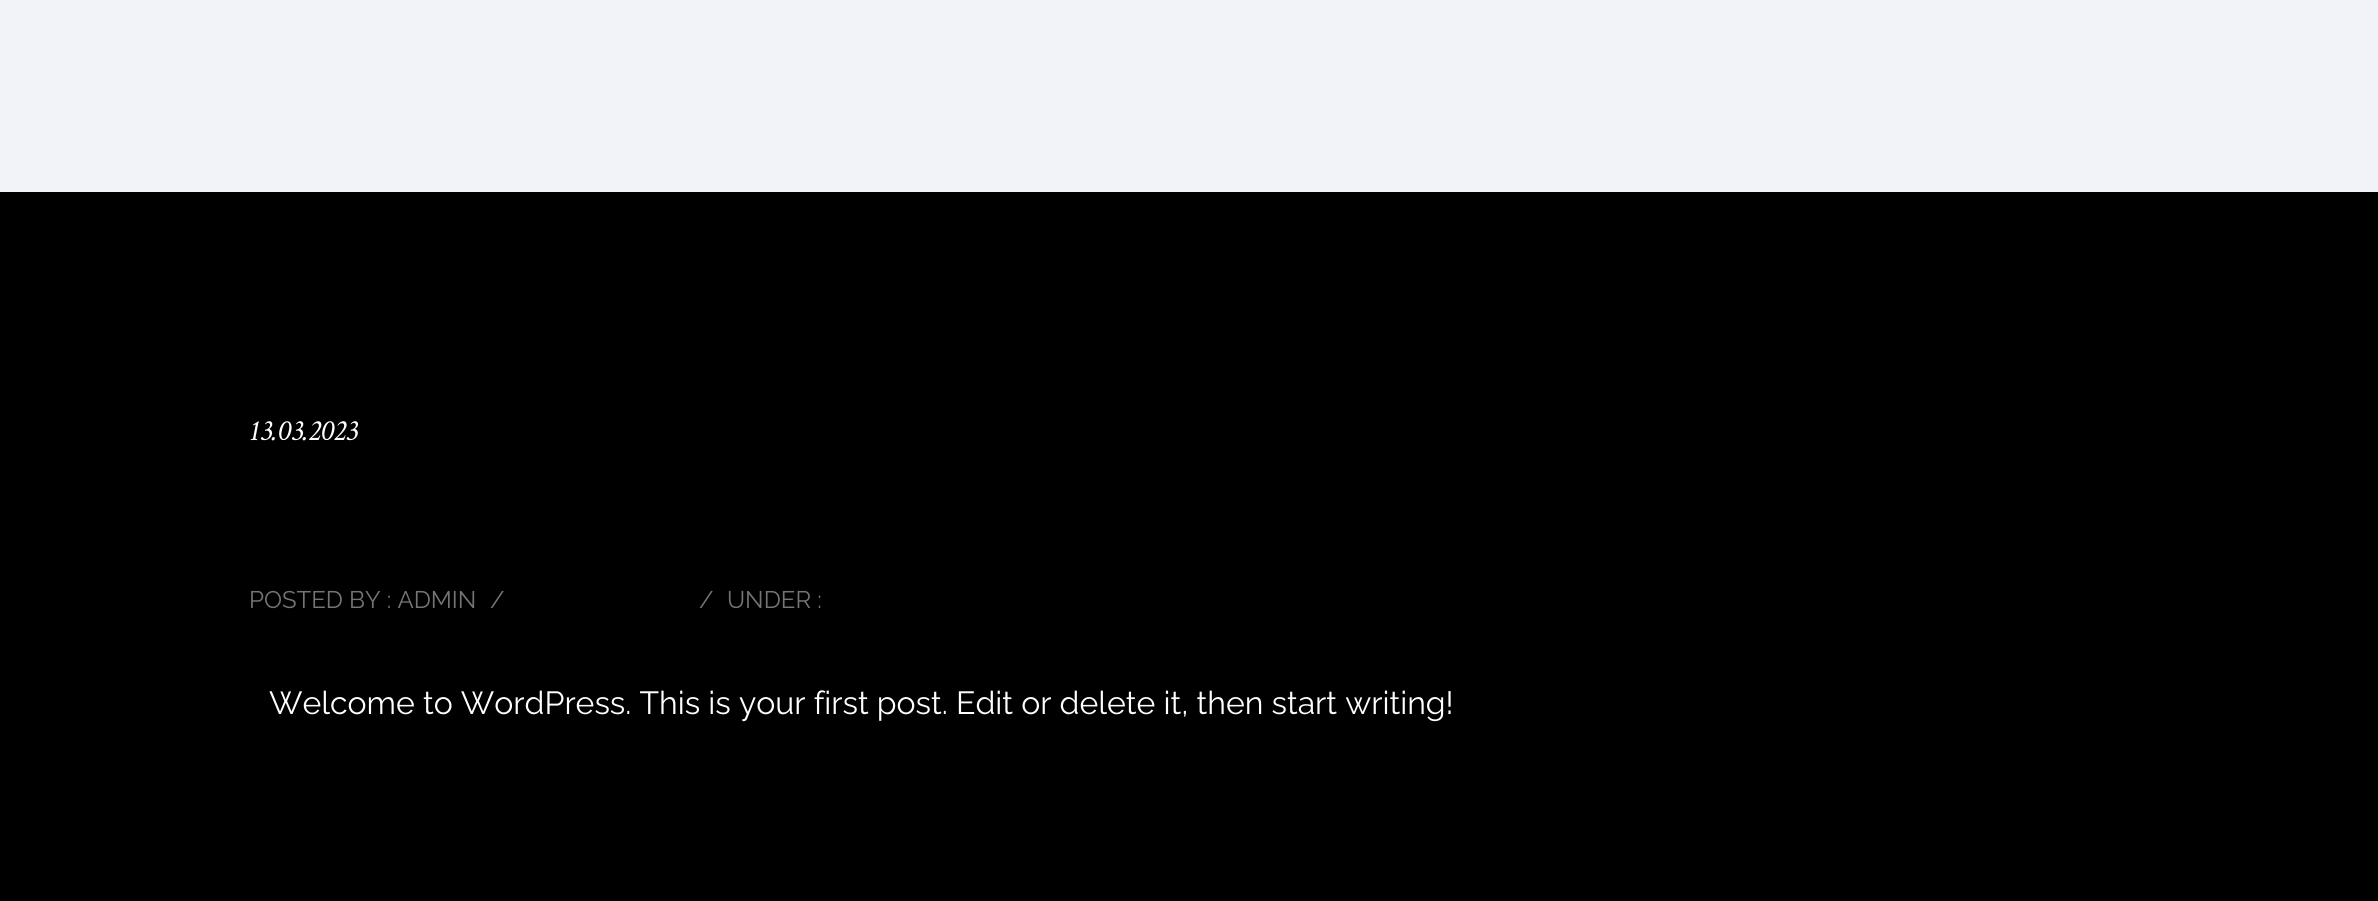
#include <cairo/cairo.h>
#include <math.h>
#include <stddef.h>


static void draw(cairo_t *cr) {
  cairo_set_source_rgb(cr, 0, 0, 0);
  cairo_paint(cr);
  cairo_set_source_rgb(cr, 242 / 255.0, 243 / 255.0, 248 / 255.0);
  cairo_rectangle(cr, 0, 0, 2378, 192);
  cairo_fill(cr);
  cairo_select_font_face(cr, "Crimson Text", CAIRO_FONT_SLANT_ITALIC, CAIRO_FONT_WEIGHT_NORMAL);
  cairo_set_font_size(cr, 30);
  cairo_set_source_rgb(cr, 1, 1, 1);
  cairo_move_to(cr, 249, 440);
  cairo_show_text(cr, "13.03.2023");
  cairo_select_font_face(cr, "Raleway Thin", CAIRO_FONT_SLANT_NORMAL, CAIRO_FONT_WEIGHT_NORMAL);
  cairo_set_font_size(cr, 24);
  cairo_set_source_rgb(cr, 117 / 255.0, 117 / 255.0, 117 / 255.0);
  cairo_move_to(cr, 249, 608);
  cairo_show_text(cr, "POSTED BY : ADMIN");
  cairo_move_to(cr, 490, 608);
  cairo_show_text(cr, "/");
  cairo_move_to(cr, 699, 608);
  cairo_show_text(cr, "/");
  cairo_move_to(cr, 727, 608);
  cairo_show_text(cr, "UNDER :");
  cairo_set_font_size(cr, 32);
  cairo_set_source_rgb(cr, 1, 1, 1);
  cairo_move_to(cr, 269, 714);
  cairo_show_text(cr, "Welcome to WordPress. This is your first post. Edit or delete it, then start writing!");
}

int main(void) {
  cairo_surface_t *surface = cairo_image_surface_create(CAIRO_FORMAT_RGB24, 2378, 901);
  cairo_t *cr = cairo_create(surface);
  cairo_font_options_t *options = cairo_font_options_create();
  cairo_font_options_set_hint_metrics(options, CAIRO_HINT_METRICS_OFF);
  cairo_font_options_set_hint_style(options, CAIRO_HINT_STYLE_NONE);
  cairo_set_font_options(cr, options);
  cairo_set_miter_limit(cr, 4);
  draw(cr);
  cairo_surface_write_to_png(surface, "out.png");
  cairo_font_options_destroy(options);
  cairo_destroy(cr);
  cairo_surface_destroy(surface);
  return 0;
}
